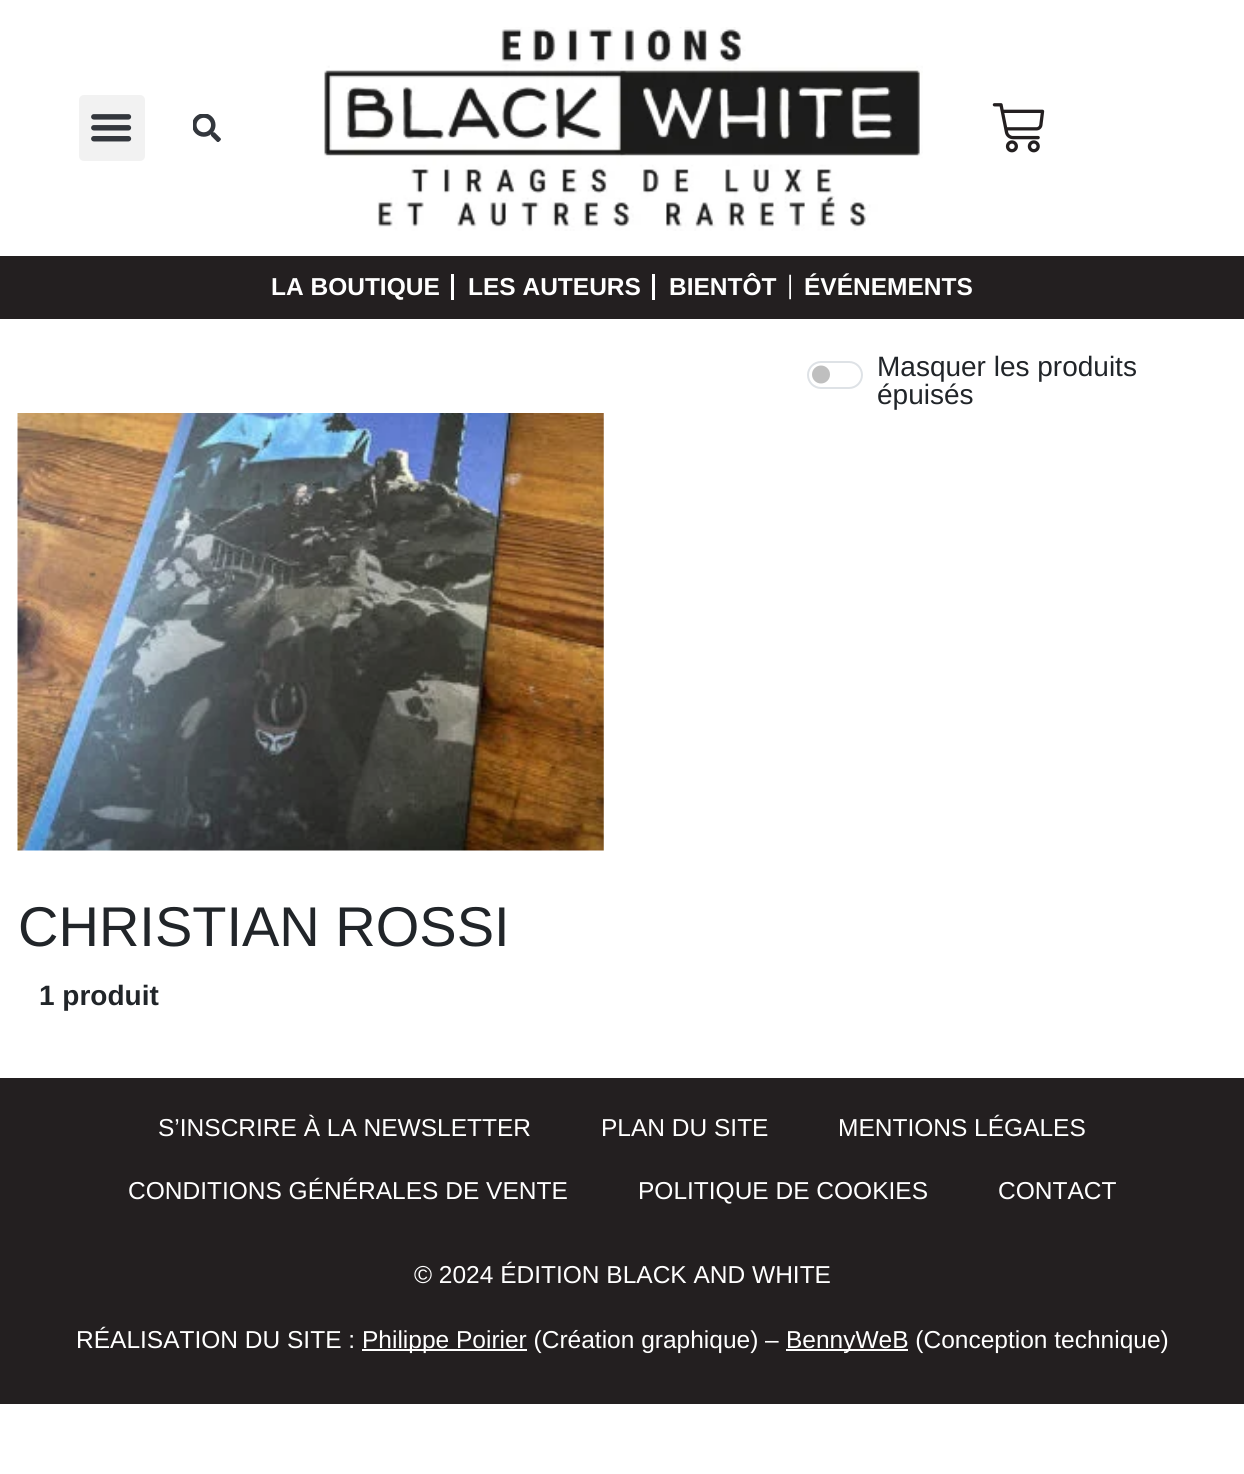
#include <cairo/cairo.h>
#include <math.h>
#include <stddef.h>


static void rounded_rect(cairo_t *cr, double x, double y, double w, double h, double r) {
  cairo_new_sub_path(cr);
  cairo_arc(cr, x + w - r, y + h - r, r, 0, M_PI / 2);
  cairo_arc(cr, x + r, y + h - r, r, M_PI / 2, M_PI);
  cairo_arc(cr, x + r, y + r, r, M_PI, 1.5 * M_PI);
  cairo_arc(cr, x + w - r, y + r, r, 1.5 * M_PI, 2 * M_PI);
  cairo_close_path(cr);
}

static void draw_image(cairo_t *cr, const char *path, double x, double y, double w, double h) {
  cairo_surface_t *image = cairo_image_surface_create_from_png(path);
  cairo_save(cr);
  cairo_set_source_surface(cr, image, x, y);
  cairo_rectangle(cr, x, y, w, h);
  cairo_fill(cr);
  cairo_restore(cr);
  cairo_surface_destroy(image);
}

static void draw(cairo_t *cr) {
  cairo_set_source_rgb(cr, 1, 1, 1);
  cairo_paint(cr);
  cairo_set_source_rgb(cr, 242 / 255.0, 242 / 255.0, 242 / 255.0);
  rounded_rect(cr, 79, 95, 66, 66, 5);
  cairo_fill(cr);
  draw_image(cr, "images/1.png", 91, 114, 41, 28);
  draw_image(cr, "images/2.png", 193, 114, 28, 28);
  draw_image(cr, "images/3.png", 324, 27, 599, 204);
  draw_image(cr, "images/4.png", 992, 103, 53, 50);
  cairo_set_source_rgb(cr, 35 / 255.0, 31 / 255.0, 32 / 255.0);
  cairo_rectangle(cr, 0, 256, 1244, 63);
  cairo_fill(cr);
  cairo_set_source_rgb(cr, 1, 1, 1);
  cairo_rectangle(cr, 451, 274, 3, 26);
  cairo_fill(cr);
  cairo_rectangle(cr, 652, 274, 3, 26);
  cairo_fill(cr);
  draw_image(cr, "images/5.png", 789, 274, 2, 26);
  cairo_set_source_rgb(cr, 191 / 255.0, 191 / 255.0, 191 / 255.0);
  cairo_arc(cr, 821, 374.5, 9, 0, 2 * M_PI);
  cairo_fill(cr);
  rounded_rect(cr, 808, 362, 54, 26, 13);
  cairo_set_source_rgb(cr, 222 / 255.0, 226 / 255.0, 230 / 255.0);
  cairo_stroke(cr);
  draw_image(cr, "images/6.png", 17, 413, 587, 438);
  cairo_set_source_rgb(cr, 35 / 255.0, 31 / 255.0, 32 / 255.0);
  cairo_rectangle(cr, 0, 1078, 1244, 326);
  cairo_fill(cr);
  cairo_set_source_rgb(cr, 1, 1, 1);
  cairo_rectangle(cr, 362, 1349, 165, 2);
  cairo_fill(cr);
  cairo_rectangle(cr, 786, 1349, 122, 2);
  cairo_fill(cr);
  cairo_select_font_face(cr, "Liberation Sans", CAIRO_FONT_SLANT_NORMAL, CAIRO_FONT_WEIGHT_BOLD);
  cairo_set_font_size(cr, 24.5);
  cairo_move_to(cr, 271, 295);
  cairo_show_text(cr, "LA BOUTIQUE");
  cairo_move_to(cr, 468, 295);
  cairo_show_text(cr, "LES AUTEURS");
  cairo_move_to(cr, 669, 295);
  cairo_show_text(cr, "BIENTÔT");
  cairo_move_to(cr, 804, 295);
  cairo_show_text(cr, "ÉVÉNEMENTS");
  cairo_select_font_face(cr, "Liberation Sans", CAIRO_FONT_SLANT_NORMAL, CAIRO_FONT_WEIGHT_NORMAL);
  cairo_set_font_size(cr, 28);
  cairo_set_source_rgb(cr, 33 / 255.0, 37 / 255.0, 41 / 255.0);
  cairo_move_to(cr, 877, 376);
  cairo_show_text(cr, "Masquer les produits");
  cairo_move_to(cr, 877, 404);
  cairo_show_text(cr, "épuisés");
  cairo_set_font_size(cr, 56);
  cairo_move_to(cr, 18, 946);
  cairo_show_text(cr, "CHRISTIAN ROSSI");
  cairo_select_font_face(cr, "Liberation Sans", CAIRO_FONT_SLANT_NORMAL, CAIRO_FONT_WEIGHT_BOLD);
  cairo_set_font_size(cr, 28);
  cairo_move_to(cr, 39, 1005);
  cairo_show_text(cr, "1 produit");
  cairo_select_font_face(cr, "Liberation Sans", CAIRO_FONT_SLANT_NORMAL, CAIRO_FONT_WEIGHT_NORMAL);
  cairo_set_font_size(cr, 24.5);
  cairo_set_source_rgb(cr, 1, 1, 1);
  cairo_move_to(cr, 158, 1136);
  cairo_show_text(cr, "S’INSCRIRE À LA NEWSLETTER");
  cairo_move_to(cr, 601, 1136);
  cairo_show_text(cr, "PLAN DU SITE");
  cairo_move_to(cr, 838, 1136);
  cairo_show_text(cr, "MENTIONS LÉGALES");
  cairo_move_to(cr, 128, 1199);
  cairo_show_text(cr, "CONDITIONS GÉNÉRALES DE VENTE");
  cairo_move_to(cr, 638, 1199);
  cairo_show_text(cr, "POLITIQUE DE COOKIES");
  cairo_move_to(cr, 998, 1199);
  cairo_show_text(cr, "CONTACT");
  cairo_move_to(cr, 414, 1283);
  cairo_show_text(cr, "© 2024 ÉDITION BLACK AND WHITE");
  cairo_move_to(cr, 76, 1348);
  cairo_show_text(cr, "RÉALISATION DU SITE :");
  cairo_move_to(cr, 362, 1348);
  cairo_show_text(cr, "Philippe Poirier (Création graphique) –");
  cairo_move_to(cr, 786, 1348);
  cairo_show_text(cr, "BennyWeB (Conception technique)");
}

int main(void) {
  cairo_surface_t *surface = cairo_image_surface_create(CAIRO_FORMAT_RGB24, 1244, 1474);
  cairo_t *cr = cairo_create(surface);
  cairo_font_options_t *options = cairo_font_options_create();
  cairo_font_options_set_hint_metrics(options, CAIRO_HINT_METRICS_OFF);
  cairo_font_options_set_hint_style(options, CAIRO_HINT_STYLE_NONE);
  cairo_set_font_options(cr, options);
  cairo_set_miter_limit(cr, 4);
  draw(cr);
  cairo_surface_write_to_png(surface, "out.png");
  cairo_font_options_destroy(options);
  cairo_destroy(cr);
  cairo_surface_destroy(surface);
  return 0;
}
